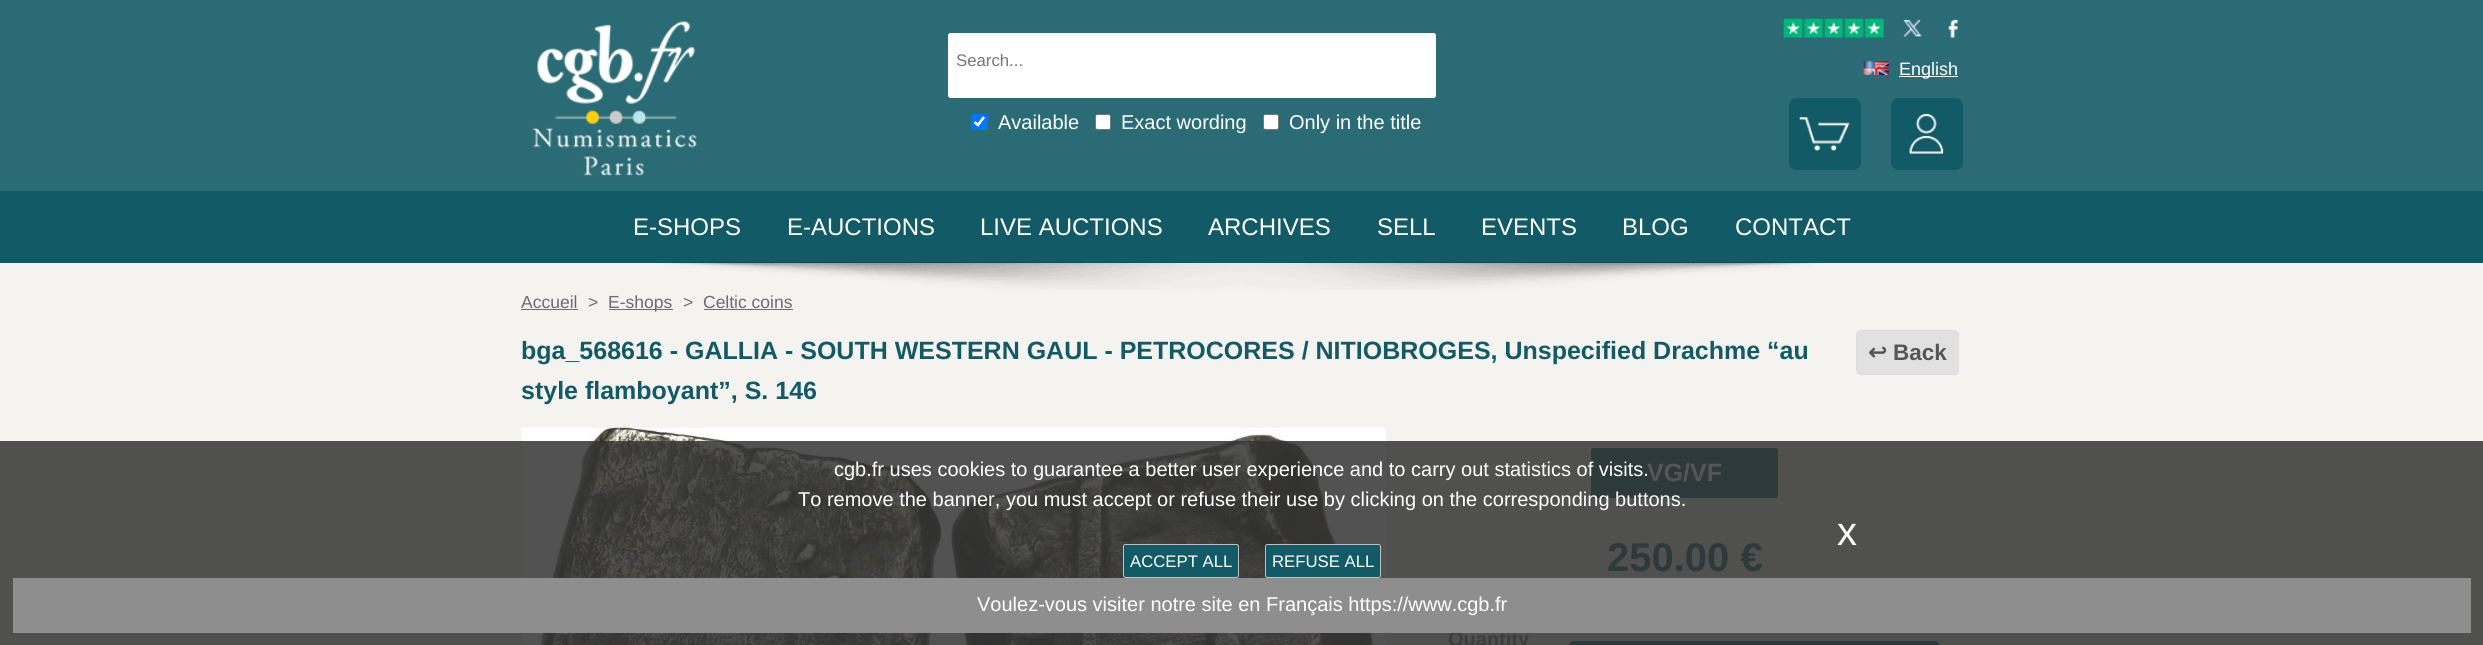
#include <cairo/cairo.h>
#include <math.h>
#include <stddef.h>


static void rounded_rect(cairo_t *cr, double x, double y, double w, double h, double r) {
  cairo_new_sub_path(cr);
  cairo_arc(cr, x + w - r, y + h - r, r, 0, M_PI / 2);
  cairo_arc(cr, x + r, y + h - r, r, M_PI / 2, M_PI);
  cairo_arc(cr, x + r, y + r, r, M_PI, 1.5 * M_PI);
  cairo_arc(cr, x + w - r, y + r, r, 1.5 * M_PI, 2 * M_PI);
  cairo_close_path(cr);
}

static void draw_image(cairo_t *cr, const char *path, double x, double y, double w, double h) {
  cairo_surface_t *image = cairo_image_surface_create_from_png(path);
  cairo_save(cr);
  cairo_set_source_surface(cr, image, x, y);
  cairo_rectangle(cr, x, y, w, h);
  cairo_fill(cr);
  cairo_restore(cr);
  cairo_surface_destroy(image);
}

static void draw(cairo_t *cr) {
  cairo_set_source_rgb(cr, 42 / 255.0, 107 / 255.0, 117 / 255.0);
  cairo_paint(cr);
  draw_image(cr, "images/1.png", 532, 21, 165, 155);
  cairo_set_source_rgb(cr, 1, 1, 1);
  rounded_rect(cr, 948, 33, 488, 65, 2.5);
  cairo_fill(cr);
  cairo_set_source_rgb(cr, 0, 117 / 255.0, 1);
  rounded_rect(cr, 971, 114, 17, 16, 2.5);
  cairo_fill(cr);
  cairo_new_path(cr);
  cairo_move_to(cr, 974.5, 122);
  cairo_line_to(cr, 978, 125);
  cairo_line_to(cr, 984, 117);
  cairo_set_source_rgb(cr, 1, 1, 1);
  cairo_set_line_width(cr, 2.6);
  cairo_stroke(cr);
  rounded_rect(cr, 1095.5, 114.5, 15, 15, 2);
  cairo_fill_preserve(cr);
  cairo_set_source_rgb(cr, 118 / 255.0, 118 / 255.0, 118 / 255.0);
  cairo_set_line_width(cr, 1);
  cairo_stroke(cr);
  cairo_set_source_rgb(cr, 1, 1, 1);
  rounded_rect(cr, 1263.5, 114.5, 15, 15, 2);
  cairo_fill_preserve(cr);
  cairo_set_source_rgb(cr, 118 / 255.0, 118 / 255.0, 118 / 255.0);
  cairo_stroke(cr);
  draw_image(cr, "images/2.png", 1783, 18, 101, 20);
  draw_image(cr, "images/3.png", 1903, 19, 19, 18);
  draw_image(cr, "images/4.png", 1948, 19, 10, 19);
  draw_image(cr, "images/5.png", 1863, 61, 26, 14);
  cairo_set_source_rgb(cr, 1, 1, 1);
  cairo_rectangle(cr, 1899, 76, 59, 1);
  cairo_fill(cr);
  cairo_set_source_rgb(cr, 18 / 255.0, 90 / 255.0, 102 / 255.0);
  rounded_rect(cr, 1789, 98, 72, 72, 8);
  cairo_fill(cr);
  draw_image(cr, "images/6.png", 1799, 117, 51, 34);
  rounded_rect(cr, 1891, 98, 72, 72, 8);
  cairo_fill(cr);
  draw_image(cr, "images/7.png", 1909, 113, 35, 41);
  cairo_rectangle(cr, 0, 191, 2483, 72);
  cairo_fill(cr);
  cairo_set_source_rgb(cr, 244 / 255.0, 243 / 255.0, 239 / 255.0);
  cairo_rectangle(cr, 0, 263, 2483, 178);
  cairo_fill(cr);
  cairo_set_source_rgb(cr, 80 / 255.0, 80 / 255.0, 79 / 255.0);
  cairo_rectangle(cr, 0, 441, 2483, 204);
  cairo_fill(cr);
  draw_image(cr, "images/8.png", 658, 262, 1166, 28);
  cairo_set_source_rgb(cr, 107 / 255.0, 109 / 255.0, 110 / 255.0);
  cairo_rectangle(cr, 521, 309, 57, 1);
  cairo_fill(cr);
  cairo_rectangle(cr, 609, 309, 64, 1);
  cairo_fill(cr);
  cairo_rectangle(cr, 704, 309, 89, 1);
  cairo_fill(cr);
  cairo_set_source_rgb(cr, 225 / 255.0, 225 / 255.0, 225 / 255.0);
  rounded_rect(cr, 1856.5, 330.5, 102, 44, 4.5);
  cairo_fill_preserve(cr);
  cairo_set_source_rgb(cr, 221 / 255.0, 221 / 255.0, 221 / 255.0);
  cairo_stroke(cr);
  draw_image(cr, "images/9.png", 521, 427, 865, 218);
  cairo_set_source_rgb(cr, 46 / 255.0, 57 / 255.0, 59 / 255.0);
  rounded_rect(cr, 1591, 448, 187, 50, 2.5);
  cairo_fill(cr);
  rounded_rect(cr, 1569, 641, 371, 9, 5);
  cairo_fill(cr);
  cairo_set_source_rgb(cr, 18 / 255.0, 90 / 255.0, 102 / 255.0);
  rounded_rect(cr, 1123.5, 544.5, 115, 33, 2);
  cairo_fill_preserve(cr);
  cairo_set_source_rgb(cr, 192 / 255.0, 192 / 255.0, 192 / 255.0);
  cairo_stroke(cr);
  cairo_set_source_rgb(cr, 18 / 255.0, 90 / 255.0, 102 / 255.0);
  rounded_rect(cr, 1265.5, 544.5, 115, 33, 2);
  cairo_fill_preserve(cr);
  cairo_set_source_rgb(cr, 192 / 255.0, 192 / 255.0, 192 / 255.0);
  cairo_stroke(cr);
  cairo_select_font_face(cr, "Liberation Sans", CAIRO_FONT_SLANT_NORMAL, CAIRO_FONT_WEIGHT_NORMAL);
  cairo_set_font_size(cr, 16.75);
  cairo_set_source_rgb(cr, 117 / 255.0, 117 / 255.0, 117 / 255.0);
  cairo_move_to(cr, 956, 66);
  cairo_show_text(cr, "Search...");
  cairo_set_font_size(cr, 20);
  cairo_set_source_rgb(cr, 1, 1, 1);
  cairo_move_to(cr, 998, 129);
  cairo_show_text(cr, "Available");
  cairo_move_to(cr, 1121, 129);
  cairo_show_text(cr, "Exact wording");
  cairo_move_to(cr, 1289, 129);
  cairo_show_text(cr, "Only in the title");
  cairo_set_font_size(cr, 18);
  cairo_move_to(cr, 1899, 75);
  cairo_show_text(cr, "English");
  cairo_set_font_size(cr, 24);
  cairo_move_to(cr, 633, 235);
  cairo_show_text(cr, "E-SHOPS");
  cairo_move_to(cr, 787, 235);
  cairo_show_text(cr, "E-AUCTIONS");
  cairo_move_to(cr, 980, 235);
  cairo_show_text(cr, "LIVE AUCTIONS");
  cairo_move_to(cr, 1208, 235);
  cairo_show_text(cr, "ARCHIVES");
  cairo_move_to(cr, 1377, 235);
  cairo_show_text(cr, "SELL");
  cairo_move_to(cr, 1481, 235);
  cairo_show_text(cr, "EVENTS");
  cairo_move_to(cr, 1622, 235);
  cairo_show_text(cr, "BLOG");
  cairo_move_to(cr, 1735, 235);
  cairo_show_text(cr, "CONTACT");
  cairo_set_font_size(cr, 17.5);
  cairo_set_source_rgb(cr, 107 / 255.0, 109 / 255.0, 110 / 255.0);
  cairo_move_to(cr, 521, 308);
  cairo_show_text(cr, "Accueil");
  cairo_move_to(cr, 588, 308);
  cairo_show_text(cr, ">");
  cairo_move_to(cr, 608, 308);
  cairo_show_text(cr, "E-shops");
  cairo_move_to(cr, 683, 308);
  cairo_show_text(cr, ">");
  cairo_move_to(cr, 703, 308);
  cairo_show_text(cr, "Celtic coins");
  cairo_select_font_face(cr, "Liberation Sans", CAIRO_FONT_SLANT_NORMAL, CAIRO_FONT_WEIGHT_BOLD);
  cairo_set_font_size(cr, 25);
  cairo_set_source_rgb(cr, 18 / 255.0, 90 / 255.0, 102 / 255.0);
  cairo_move_to(cr, 521, 359);
  cairo_show_text(cr, "bga_568616 - GALLIA - SOUTH WESTERN GAUL - PETROCORES / NITIOBROGES, Unspecified Drachme “au");
  cairo_move_to(cr, 521, 399);
  cairo_show_text(cr, "style flamboyant”, S. 146");
  cairo_select_font_face(cr, "DejaVu Sans", CAIRO_FONT_SLANT_NORMAL, CAIRO_FONT_WEIGHT_BOLD);
  cairo_set_font_size(cr, 22.5);
  cairo_set_source_rgb(cr, 86 / 255.0, 86 / 255.0, 86 / 255.0);
  cairo_move_to(cr, 1868, 360);
  cairo_show_text(cr, "↩");
  cairo_select_font_face(cr, "Liberation Sans", CAIRO_FONT_SLANT_NORMAL, CAIRO_FONT_WEIGHT_BOLD);
  cairo_move_to(cr, 1893, 360);
  cairo_show_text(cr, "Back");
  cairo_set_font_size(cr, 25);
  cairo_move_to(cr, 1647, 481);
  cairo_show_text(cr, "VG/VF");
  cairo_set_font_size(cr, 40);
  cairo_set_source_rgb(cr, 46 / 255.0, 57 / 255.0, 59 / 255.0);
  cairo_move_to(cr, 1607, 571);
  cairo_show_text(cr, "250.00 €");
  cairo_set_font_size(cr, 20);
  cairo_set_source_rgb(cr, 60 / 255.0, 60 / 255.0, 60 / 255.0);
  cairo_move_to(cr, 1448, 646);
  cairo_show_text(cr, "Quantity");
  cairo_select_font_face(cr, "Liberation Sans", CAIRO_FONT_SLANT_NORMAL, CAIRO_FONT_WEIGHT_NORMAL);
  cairo_set_source_rgb(cr, 1, 1, 1);
  cairo_move_to(cr, 834, 476);
  cairo_show_text(cr, "cgb.fr uses cookies to guarantee a better user experience and to carry out statistics of visits.");
  cairo_move_to(cr, 798, 506);
  cairo_show_text(cr, "To remove the banner, you must accept or refuse their use by clicking on the corresponding buttons.");
  cairo_set_font_size(cr, 40);
  cairo_move_to(cr, 1837, 545);
  cairo_show_text(cr, "x");
  cairo_set_font_size(cr, 16.75);
  cairo_move_to(cr, 1130, 567);
  cairo_show_text(cr, "ACCEPT ALL");
  cairo_move_to(cr, 1272, 567);
  cairo_show_text(cr, "REFUSE ALL");
  cairo_set_source_rgb(cr, 142 / 255.0, 142 / 255.0, 142 / 255.0);
  cairo_rectangle(cr, 13, 578, 2458, 55);
  cairo_fill(cr);
  cairo_set_font_size(cr, 20);
  cairo_set_source_rgb(cr, 1, 1, 1);
  cairo_move_to(cr, 977, 611);
  cairo_show_text(cr, "Voulez-vous visiter notre site en Français https://www.cgb.fr");
}

int main(void) {
  cairo_surface_t *surface = cairo_image_surface_create(CAIRO_FORMAT_RGB24, 2483, 645);
  cairo_t *cr = cairo_create(surface);
  cairo_font_options_t *options = cairo_font_options_create();
  cairo_font_options_set_hint_metrics(options, CAIRO_HINT_METRICS_OFF);
  cairo_font_options_set_hint_style(options, CAIRO_HINT_STYLE_NONE);
  cairo_set_font_options(cr, options);
  cairo_set_miter_limit(cr, 4);
  draw(cr);
  cairo_surface_write_to_png(surface, "out.png");
  cairo_font_options_destroy(options);
  cairo_destroy(cr);
  cairo_surface_destroy(surface);
  return 0;
}
